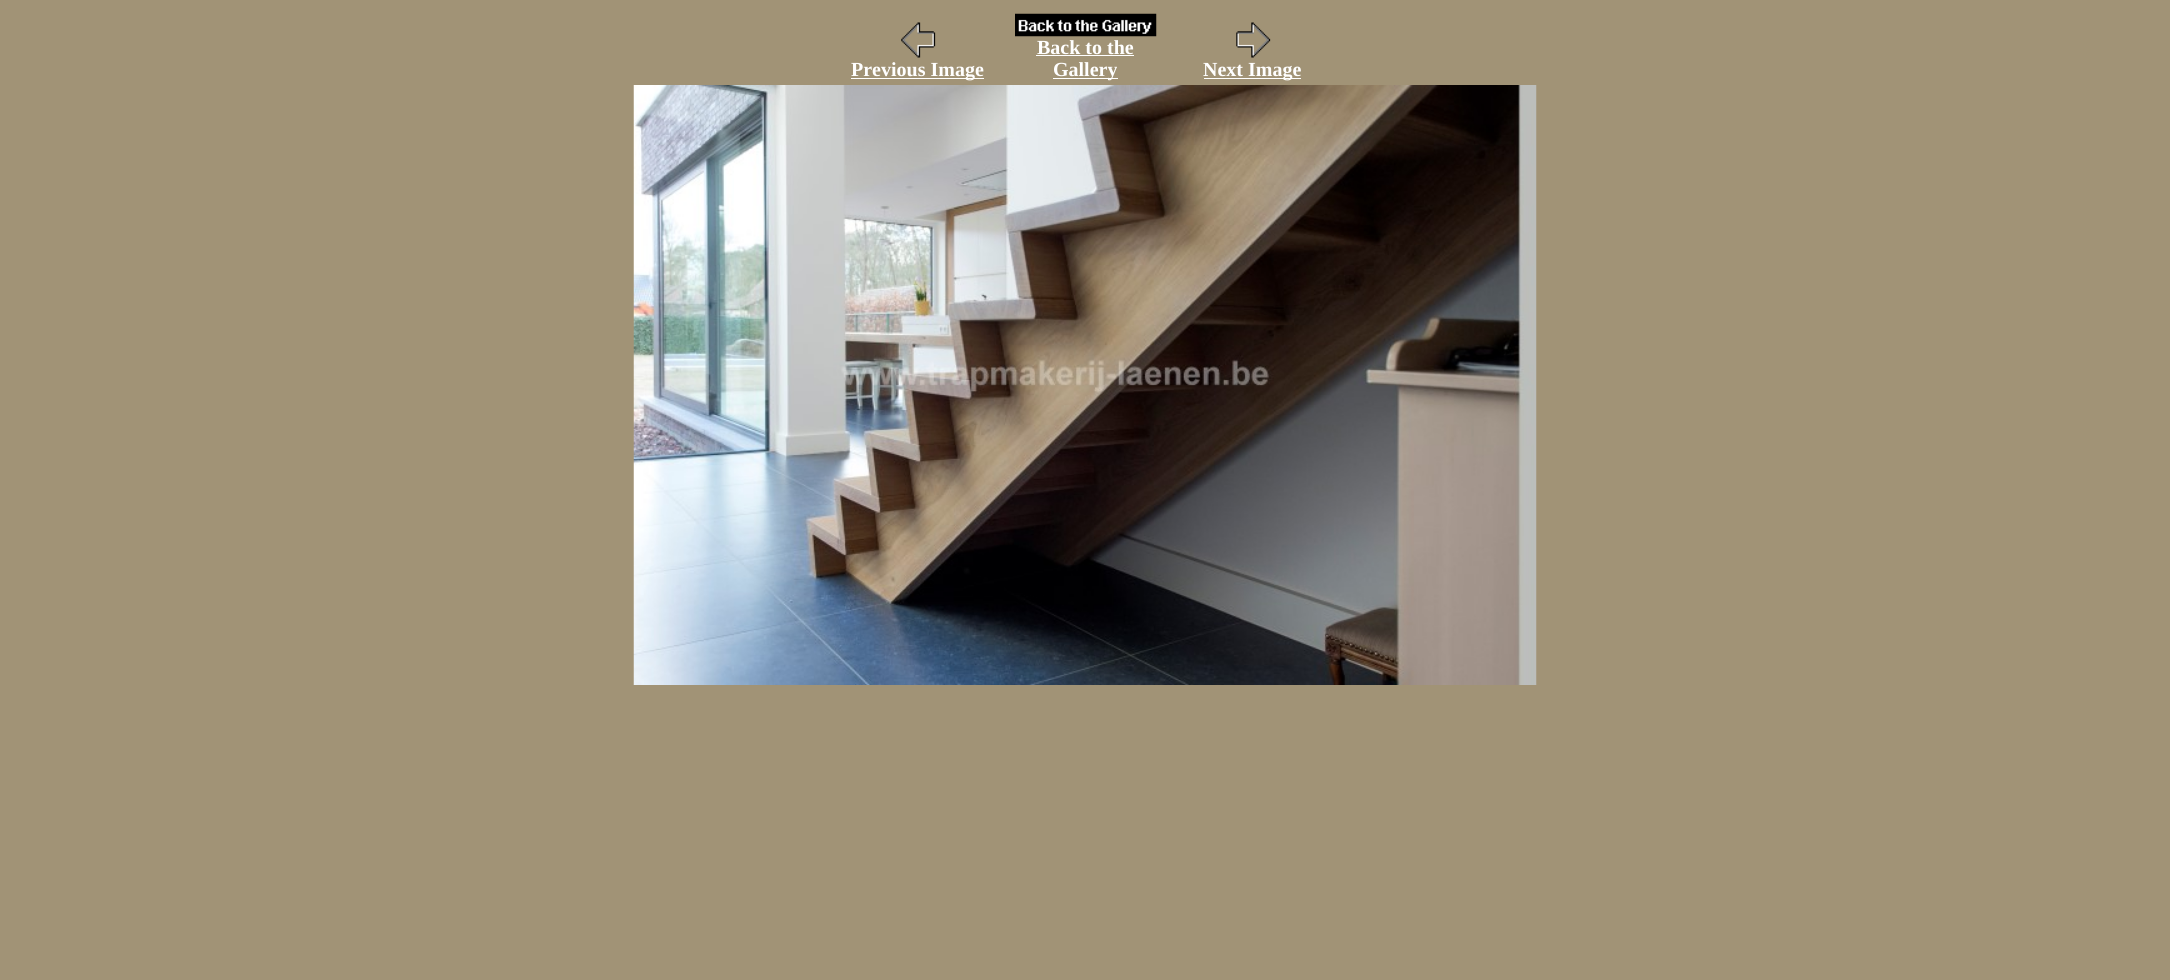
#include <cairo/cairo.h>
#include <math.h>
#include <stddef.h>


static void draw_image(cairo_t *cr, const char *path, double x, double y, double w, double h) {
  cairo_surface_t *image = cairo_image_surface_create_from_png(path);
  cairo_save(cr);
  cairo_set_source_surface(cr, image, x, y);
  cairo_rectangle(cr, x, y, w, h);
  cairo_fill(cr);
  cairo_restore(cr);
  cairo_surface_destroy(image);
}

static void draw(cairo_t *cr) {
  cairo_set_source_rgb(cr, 161 / 255.0, 147 / 255.0, 118 / 255.0);
  cairo_paint(cr);
  draw_image(cr, "images/1.png", 901, 22, 35, 36);
  cairo_set_source_rgb(cr, 1, 1, 1);
  cairo_rectangle(cr, 851, 78, 133, 1);
  cairo_fill(cr);
  draw_image(cr, "images/2.png", 1015, 13, 142, 24);
  cairo_rectangle(cr, 1036, 55, 98, 1);
  cairo_fill(cr);
  cairo_rectangle(cr, 1053, 78, 65, 1);
  cairo_fill(cr);
  draw_image(cr, "images/3.png", 1236, 22, 35, 36);
  cairo_rectangle(cr, 1204, 78, 97, 1);
  cairo_fill(cr);
  draw_image(cr, "images/4.png", 633, 85, 904, 600);
  cairo_select_font_face(cr, "Liberation Serif", CAIRO_FONT_SLANT_NORMAL, CAIRO_FONT_WEIGHT_BOLD);
  cairo_set_font_size(cr, 20);
  cairo_move_to(cr, 851, 76);
  cairo_show_text(cr, "Previous Image");
  cairo_move_to(cr, 1037, 54);
  cairo_show_text(cr, "Back to the");
  cairo_move_to(cr, 1053, 76);
  cairo_show_text(cr, "Gallery");
  cairo_move_to(cr, 1203, 76);
  cairo_show_text(cr, "Next Image");
}

int main(void) {
  cairo_surface_t *surface = cairo_image_surface_create(CAIRO_FORMAT_RGB24, 2170, 980);
  cairo_t *cr = cairo_create(surface);
  cairo_font_options_t *options = cairo_font_options_create();
  cairo_font_options_set_hint_metrics(options, CAIRO_HINT_METRICS_OFF);
  cairo_font_options_set_hint_style(options, CAIRO_HINT_STYLE_NONE);
  cairo_set_font_options(cr, options);
  cairo_set_miter_limit(cr, 4);
  draw(cr);
  cairo_surface_write_to_png(surface, "out.png");
  cairo_font_options_destroy(options);
  cairo_destroy(cr);
  cairo_surface_destroy(surface);
  return 0;
}
